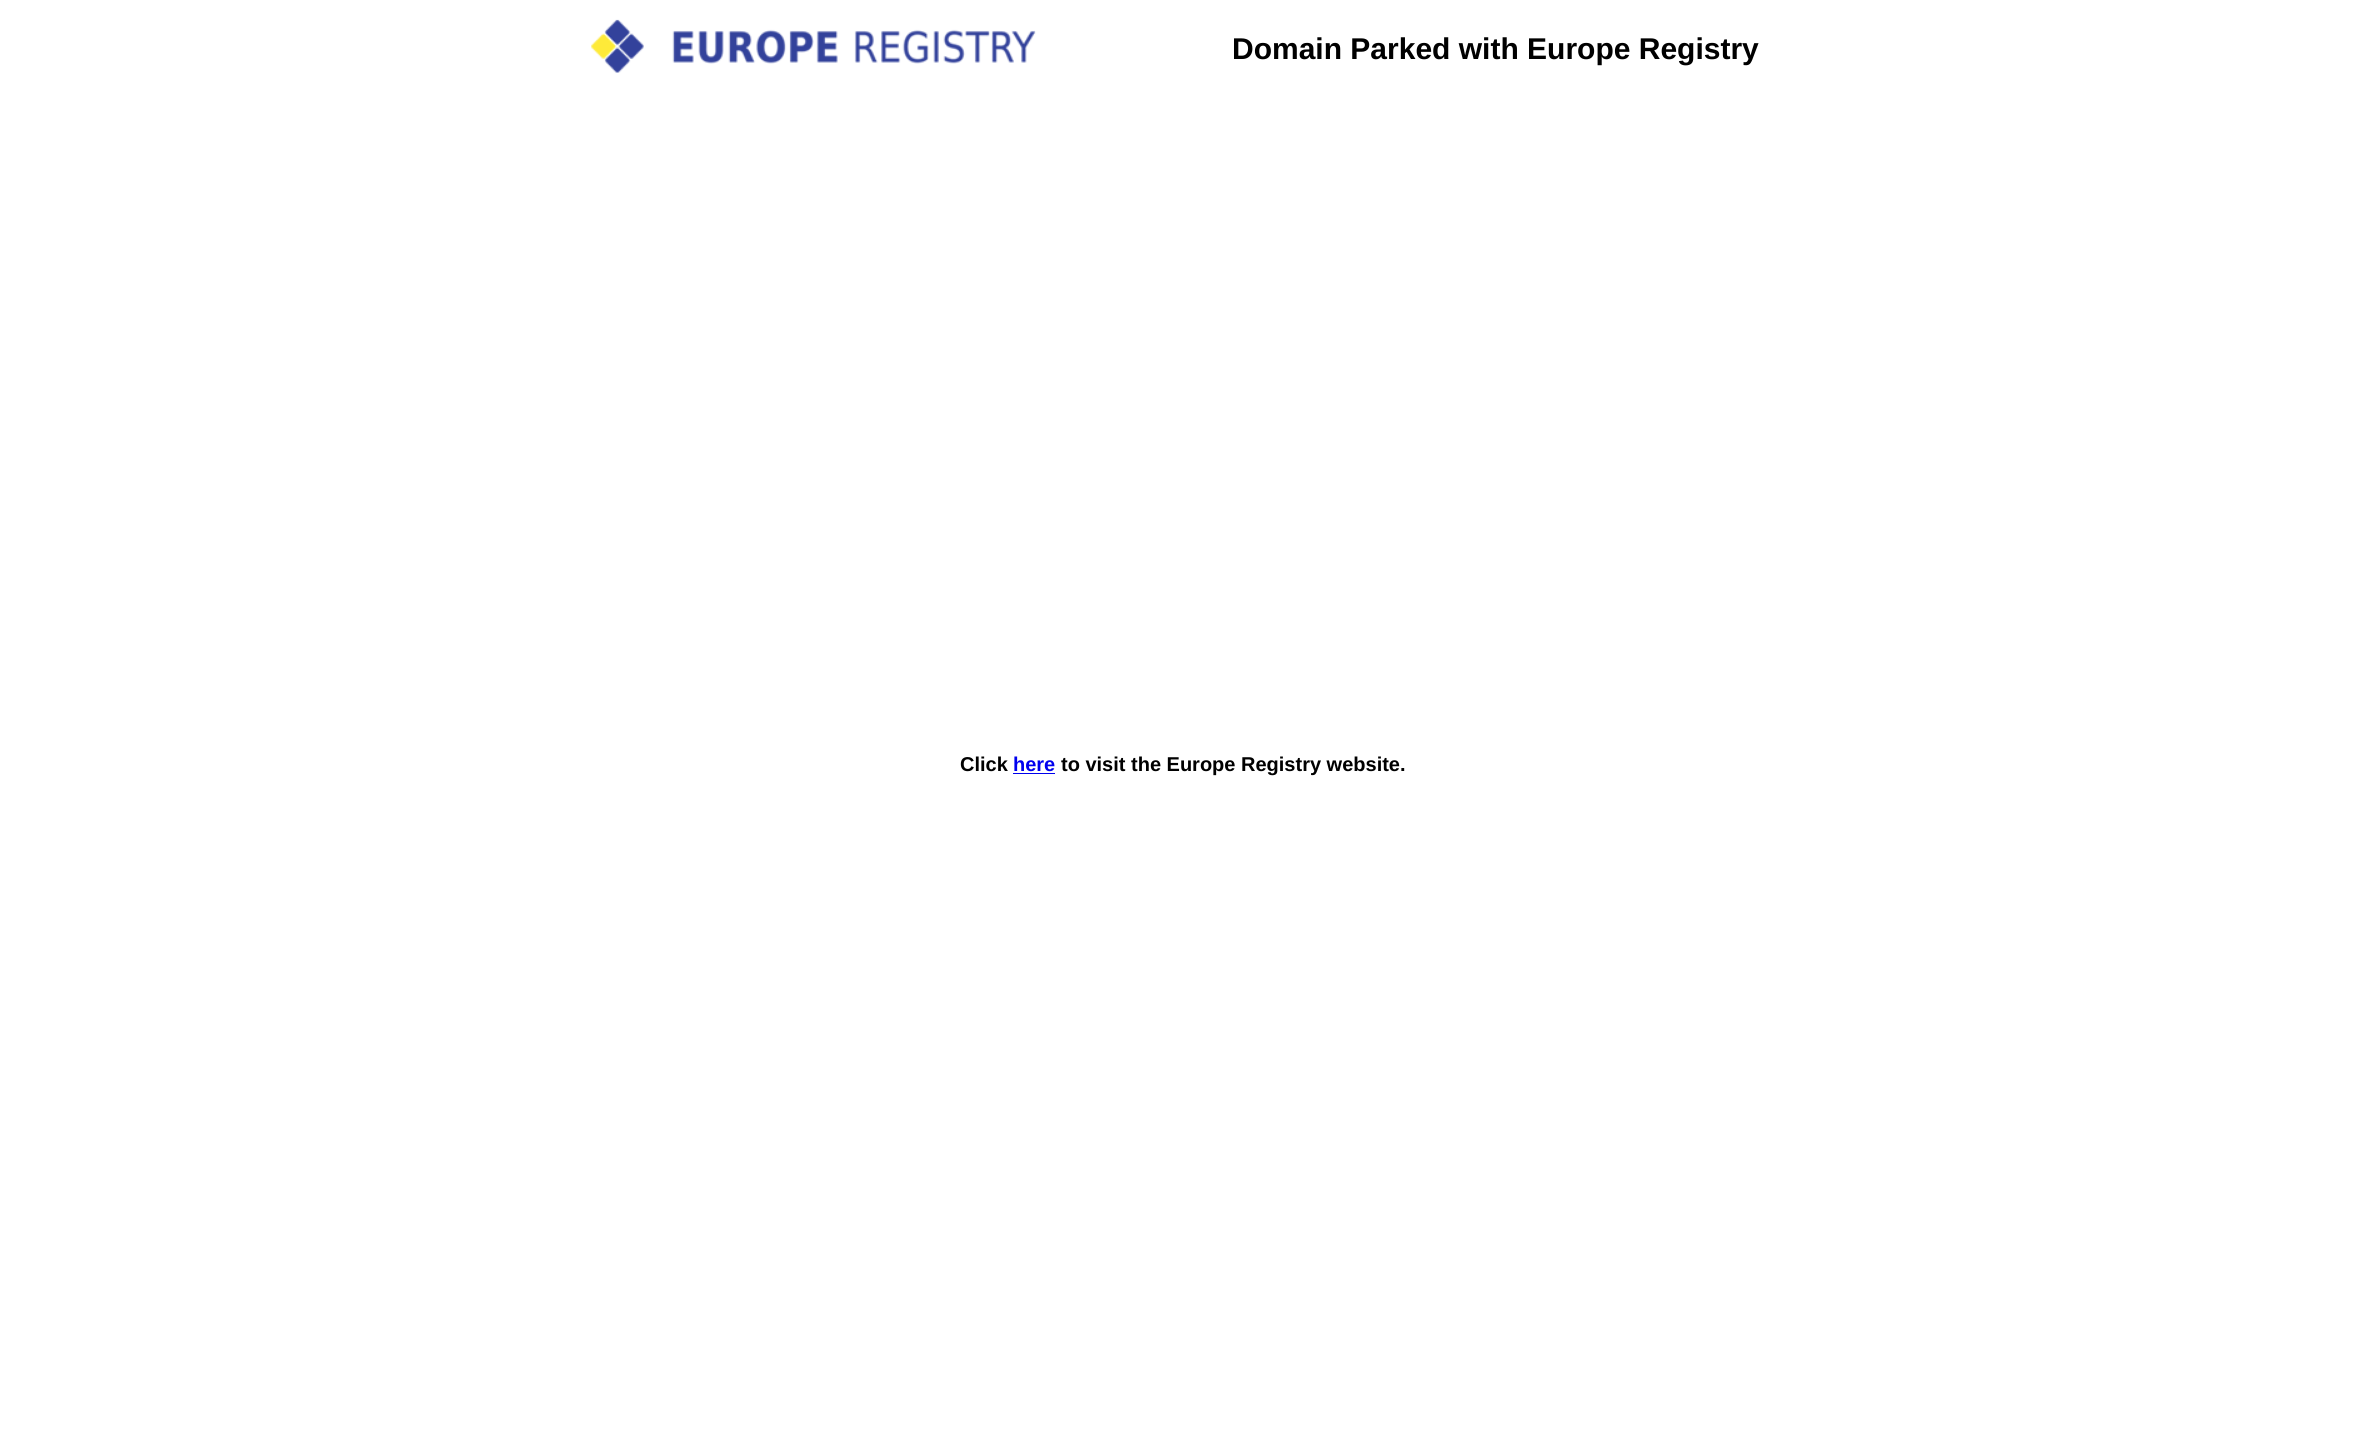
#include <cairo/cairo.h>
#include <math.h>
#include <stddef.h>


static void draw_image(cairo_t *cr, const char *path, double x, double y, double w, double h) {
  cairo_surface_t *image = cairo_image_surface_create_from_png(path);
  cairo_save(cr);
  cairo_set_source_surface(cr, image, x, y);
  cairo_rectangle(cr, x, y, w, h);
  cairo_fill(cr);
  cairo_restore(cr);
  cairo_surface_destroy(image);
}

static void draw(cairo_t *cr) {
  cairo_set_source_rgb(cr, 1, 1, 1);
  cairo_paint(cr);
  draw_image(cr, "images/1.png", 591, 19, 445, 54);
  cairo_set_source_rgb(cr, 0, 0, 238 / 255.0);
  cairo_rectangle(cr, 1013, 773, 42, 1);
  cairo_fill(cr);
  cairo_select_font_face(cr, "Liberation Sans", CAIRO_FONT_SLANT_NORMAL, CAIRO_FONT_WEIGHT_BOLD);
  cairo_set_font_size(cr, 30);
  cairo_set_source_rgb(cr, 0, 0, 0);
  cairo_move_to(cr, 1232, 59);
  cairo_show_text(cr, "Domain Parked with Europe Registry");
  cairo_set_font_size(cr, 20);
  cairo_move_to(cr, 960, 771);
  cairo_show_text(cr, "Click");
  cairo_set_source_rgb(cr, 0, 0, 238 / 255.0);
  cairo_move_to(cr, 1013, 771);
  cairo_show_text(cr, "here");
  cairo_set_source_rgb(cr, 0, 0, 0);
  cairo_move_to(cr, 1061, 771);
  cairo_show_text(cr, "to visit the Europe Registry website.");
}

int main(void) {
  cairo_surface_t *surface = cairo_image_surface_create(CAIRO_FORMAT_RGB24, 2364, 1432);
  cairo_t *cr = cairo_create(surface);
  cairo_font_options_t *options = cairo_font_options_create();
  cairo_font_options_set_hint_metrics(options, CAIRO_HINT_METRICS_OFF);
  cairo_font_options_set_hint_style(options, CAIRO_HINT_STYLE_NONE);
  cairo_set_font_options(cr, options);
  cairo_set_miter_limit(cr, 4);
  draw(cr);
  cairo_surface_write_to_png(surface, "out.png");
  cairo_font_options_destroy(options);
  cairo_destroy(cr);
  cairo_surface_destroy(surface);
  return 0;
}
